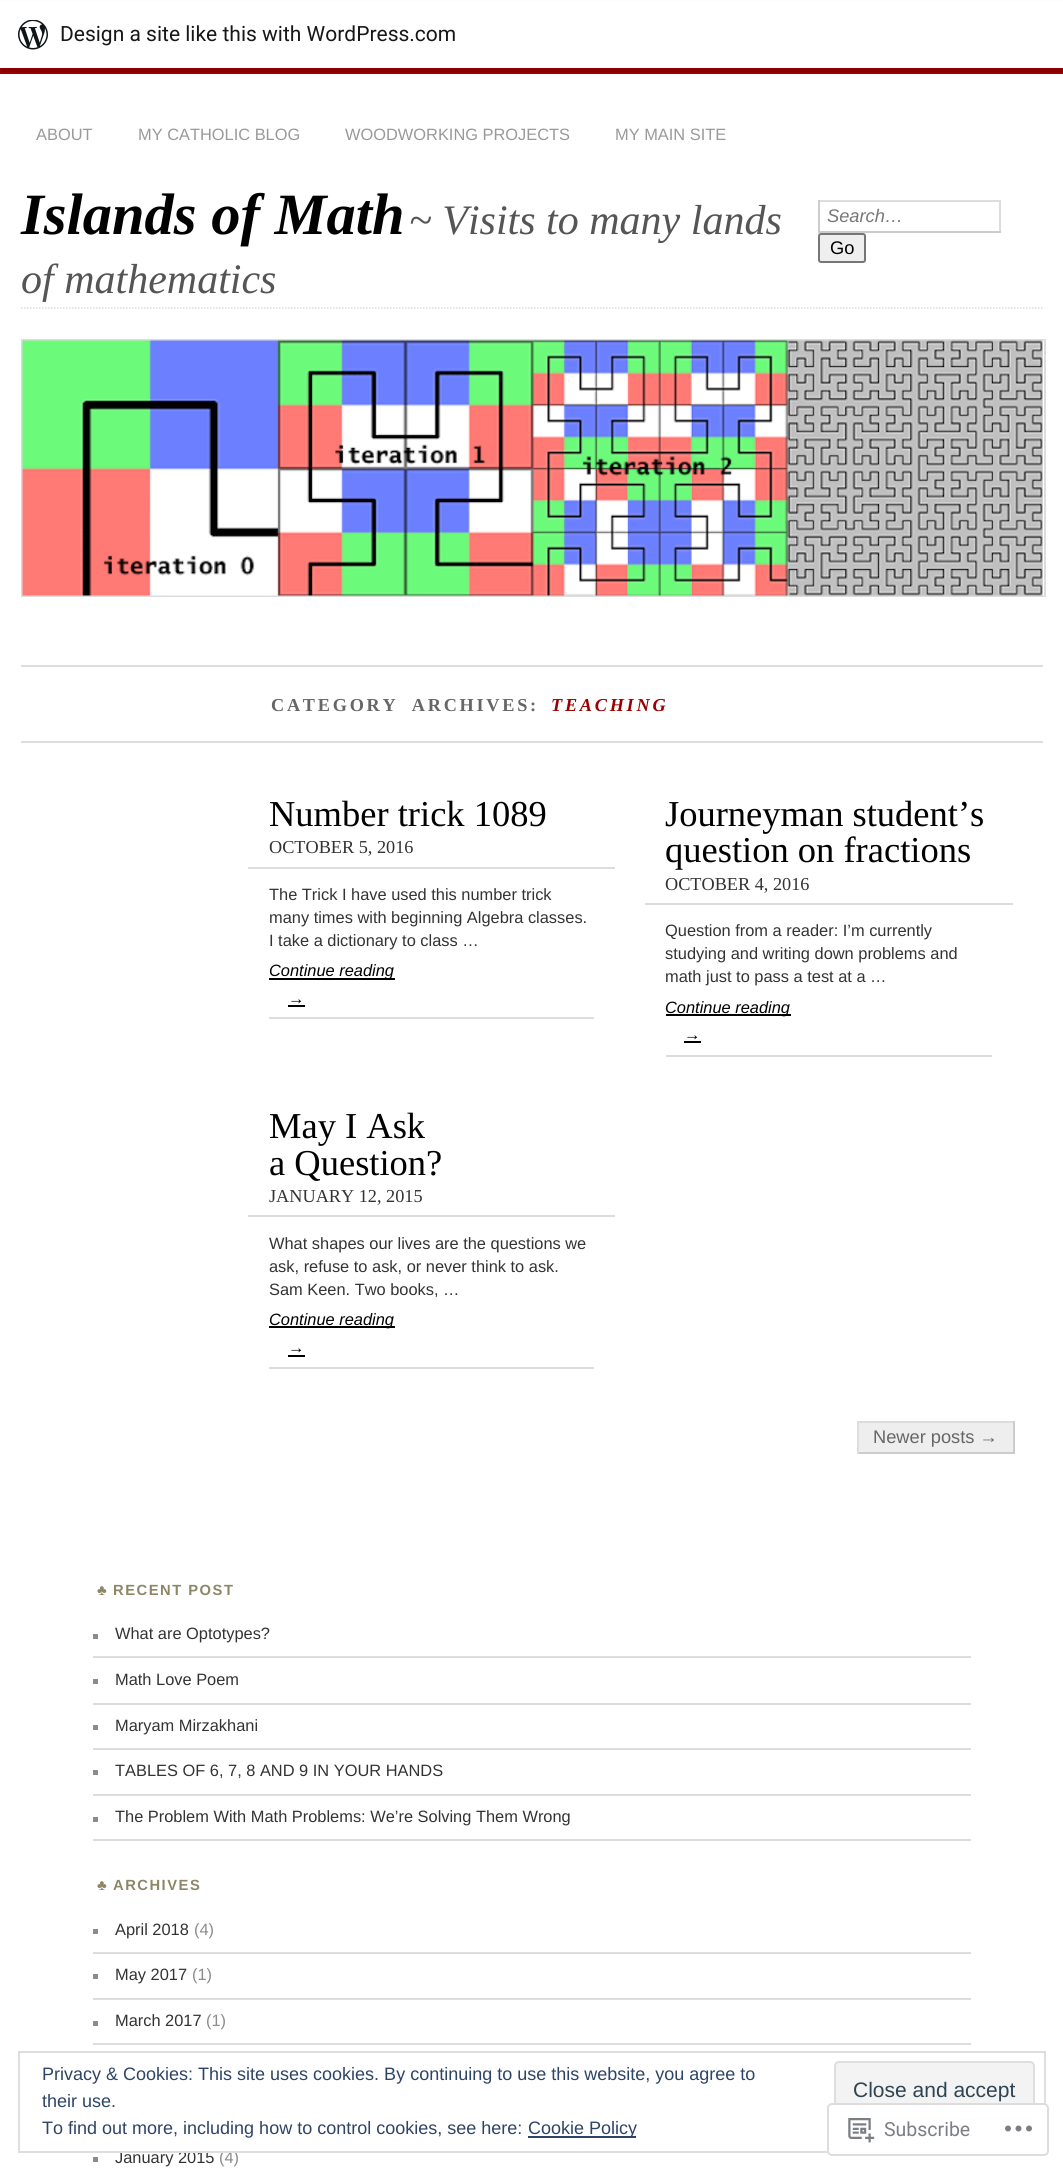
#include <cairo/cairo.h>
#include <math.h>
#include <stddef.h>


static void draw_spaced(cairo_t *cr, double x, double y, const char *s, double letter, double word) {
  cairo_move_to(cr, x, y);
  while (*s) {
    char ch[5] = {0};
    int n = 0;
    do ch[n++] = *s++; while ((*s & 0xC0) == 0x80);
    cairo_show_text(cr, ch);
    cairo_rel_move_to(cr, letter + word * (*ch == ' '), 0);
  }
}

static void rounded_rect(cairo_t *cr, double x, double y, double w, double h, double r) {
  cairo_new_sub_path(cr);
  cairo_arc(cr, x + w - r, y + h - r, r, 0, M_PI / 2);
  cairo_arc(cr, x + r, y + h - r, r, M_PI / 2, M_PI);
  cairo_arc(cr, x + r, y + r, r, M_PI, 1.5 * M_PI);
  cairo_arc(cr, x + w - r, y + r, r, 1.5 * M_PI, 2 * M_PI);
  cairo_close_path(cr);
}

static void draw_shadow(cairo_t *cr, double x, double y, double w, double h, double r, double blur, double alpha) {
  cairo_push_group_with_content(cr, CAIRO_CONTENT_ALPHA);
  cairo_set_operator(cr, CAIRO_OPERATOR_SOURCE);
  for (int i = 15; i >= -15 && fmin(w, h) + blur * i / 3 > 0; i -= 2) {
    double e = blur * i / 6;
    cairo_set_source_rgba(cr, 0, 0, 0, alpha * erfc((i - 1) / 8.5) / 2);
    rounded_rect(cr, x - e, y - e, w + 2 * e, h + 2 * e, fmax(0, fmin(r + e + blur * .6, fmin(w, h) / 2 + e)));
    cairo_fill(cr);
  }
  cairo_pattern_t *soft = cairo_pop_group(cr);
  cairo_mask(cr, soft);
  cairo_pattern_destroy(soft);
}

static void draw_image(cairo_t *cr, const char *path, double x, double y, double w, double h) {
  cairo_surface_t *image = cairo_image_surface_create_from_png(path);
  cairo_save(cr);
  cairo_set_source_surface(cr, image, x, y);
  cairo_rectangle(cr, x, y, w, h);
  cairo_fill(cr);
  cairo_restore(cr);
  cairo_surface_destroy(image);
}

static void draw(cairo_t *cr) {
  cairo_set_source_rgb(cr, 1, 1, 1);
  cairo_paint(cr);
  cairo_set_source_rgb(cr, 153 / 255.0, 0, 0);
  cairo_rectangle(cr, 0, 68, 1063, 6);
  cairo_fill(cr);
  cairo_set_source_rgb(cr, 0, 0, 0);
  draw_shadow(cr, 0, 2, 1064, 67, 0, 1.5, 0.05);
  cairo_set_source_rgba(cr, 0, 0, 0, 0.08);
  cairo_new_path(cr);
  cairo_move_to(cr, 2, 68);
  cairo_line_to(cr, 2, 72);
  cairo_line_to(cr, 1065, 72);
  cairo_line_to(cr, 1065, 5);
  cairo_line_to(cr, 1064, 5);
  cairo_line_to(cr, 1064, 68);
  cairo_close_path(cr);
  cairo_fill(cr);
  cairo_set_source_rgb(cr, 1, 1, 1);
  cairo_rectangle(cr, 0, 1, 1063, 67);
  cairo_fill(cr);
  draw_image(cr, "images/1.png", 18, 20, 30, 30);
  cairo_set_source_rgb(cr, 221 / 255.0, 221 / 255.0, 221 / 255.0);
  cairo_rectangle(cr, 818, 200, 183, 2);
  cairo_fill(cr);
  cairo_rectangle(cr, 999, 200, 2, 33);
  cairo_fill(cr);
  cairo_set_source_rgb(cr, 204 / 255.0, 204 / 255.0, 204 / 255.0);
  cairo_rectangle(cr, 818, 231, 183, 2);
  cairo_fill(cr);
  cairo_rectangle(cr, 818, 200, 2, 33);
  cairo_fill(cr);
  cairo_set_source_rgb(cr, 239 / 255.0, 239 / 255.0, 239 / 255.0);
  rounded_rect(cr, 819, 234, 46, 28, 2);
  cairo_fill_preserve(cr);
  cairo_set_source_rgb(cr, 118 / 255.0, 118 / 255.0, 118 / 255.0);
  cairo_stroke(cr);
  cairo_new_path(cr);
  cairo_move_to(cr, 21, 308);
  cairo_line_to(cr, 1042.5, 308);
  cairo_set_source_rgb(cr, 221 / 255.0, 221 / 255.0, 221 / 255.0);
  cairo_set_line_width(cr, 1.5);
  cairo_set_dash(cr, (double[]){1.5, 1.5}, 2, 0);
  cairo_stroke(cr);
  cairo_rectangle(cr, 22, 340, 1023, 256);
  cairo_set_line_width(cr, 2);
  cairo_set_dash(cr, NULL, 0, 0);
  cairo_stroke(cr);
  draw_image(cr, "images/2.png", 22, 340, 1022, 256);
  cairo_rectangle(cr, 21, 665, 1022, 2);
  cairo_fill(cr);
  cairo_rectangle(cr, 21, 741, 1022, 2);
  cairo_fill(cr);
  cairo_rectangle(cr, 248, 867, 367, 2);
  cairo_fill(cr);
  cairo_set_source_rgb(cr, 0, 0, 0);
  cairo_rectangle(cr, 269, 978, 126, 2);
  cairo_fill(cr);
  cairo_set_source_rgb(cr, 221 / 255.0, 221 / 255.0, 221 / 255.0);
  cairo_rectangle(cr, 269, 1017, 325, 2);
  cairo_fill(cr);
  cairo_set_source_rgb(cr, 0, 0, 0);
  cairo_rectangle(cr, 288, 1005, 17, 2);
  cairo_fill(cr);
  cairo_set_source_rgb(cr, 221 / 255.0, 221 / 255.0, 221 / 255.0);
  cairo_rectangle(cr, 645, 903, 368, 2);
  cairo_fill(cr);
  cairo_set_source_rgb(cr, 0, 0, 0);
  cairo_rectangle(cr, 666, 1014, 125, 2);
  cairo_fill(cr);
  cairo_set_source_rgb(cr, 221 / 255.0, 221 / 255.0, 221 / 255.0);
  cairo_rectangle(cr, 666, 1055, 326, 2);
  cairo_fill(cr);
  cairo_set_source_rgb(cr, 0, 0, 0);
  cairo_rectangle(cr, 684, 1041, 17, 2);
  cairo_fill(cr);
  cairo_set_source_rgb(cr, 221 / 255.0, 221 / 255.0, 221 / 255.0);
  cairo_rectangle(cr, 248, 1215, 367, 2);
  cairo_fill(cr);
  cairo_set_source_rgb(cr, 0, 0, 0);
  cairo_rectangle(cr, 269, 1326, 126, 2);
  cairo_fill(cr);
  cairo_set_source_rgb(cr, 221 / 255.0, 221 / 255.0, 221 / 255.0);
  cairo_rectangle(cr, 269, 1367, 325, 2);
  cairo_fill(cr);
  cairo_set_source_rgb(cr, 0, 0, 0);
  cairo_rectangle(cr, 288, 1355, 17, 2);
  cairo_fill(cr);
  cairo_set_source_rgb(cr, 238 / 255.0, 238 / 255.0, 238 / 255.0);
  cairo_rectangle(cr, 859, 1423, 154, 29);
  cairo_fill(cr);
  cairo_set_source_rgb(cr, 221 / 255.0, 221 / 255.0, 221 / 255.0);
  cairo_rectangle(cr, 857, 1421, 157, 2);
  cairo_fill(cr);
  cairo_set_source_rgb(cr, 204 / 255.0, 204 / 255.0, 204 / 255.0);
  cairo_rectangle(cr, 1013, 1421, 2, 33);
  cairo_fill(cr);
  cairo_rectangle(cr, 857, 1452, 157, 2);
  cairo_fill(cr);
  cairo_set_source_rgb(cr, 221 / 255.0, 221 / 255.0, 221 / 255.0);
  cairo_rectangle(cr, 857, 1421, 2, 33);
  cairo_fill(cr);
  cairo_rectangle(cr, 93, 1656, 878, 2);
  cairo_fill(cr);
  cairo_set_source_rgb(cr, 140 / 255.0, 139 / 255.0, 139 / 255.0);
  cairo_rectangle(cr, 93, 1634, 5, 5);
  cairo_fill(cr);
  cairo_set_source_rgb(cr, 221 / 255.0, 221 / 255.0, 221 / 255.0);
  cairo_rectangle(cr, 93, 1703, 878, 2);
  cairo_fill(cr);
  cairo_set_source_rgb(cr, 140 / 255.0, 139 / 255.0, 139 / 255.0);
  cairo_rectangle(cr, 93, 1679, 5, 5);
  cairo_fill(cr);
  cairo_set_source_rgb(cr, 221 / 255.0, 221 / 255.0, 221 / 255.0);
  cairo_rectangle(cr, 93, 1748, 878, 2);
  cairo_fill(cr);
  cairo_set_source_rgb(cr, 140 / 255.0, 139 / 255.0, 139 / 255.0);
  cairo_rectangle(cr, 93, 1725, 5, 5);
  cairo_fill(cr);
  cairo_set_source_rgb(cr, 221 / 255.0, 221 / 255.0, 221 / 255.0);
  cairo_rectangle(cr, 93, 1794, 878, 2);
  cairo_fill(cr);
  cairo_set_source_rgb(cr, 140 / 255.0, 139 / 255.0, 139 / 255.0);
  cairo_rectangle(cr, 93, 1770, 5, 5);
  cairo_fill(cr);
  cairo_set_source_rgb(cr, 221 / 255.0, 221 / 255.0, 221 / 255.0);
  cairo_rectangle(cr, 93, 1839, 878, 2);
  cairo_fill(cr);
  cairo_set_source_rgb(cr, 140 / 255.0, 139 / 255.0, 139 / 255.0);
  cairo_rectangle(cr, 93, 1817, 5, 5);
  cairo_fill(cr);
  cairo_set_source_rgb(cr, 221 / 255.0, 221 / 255.0, 221 / 255.0);
  cairo_rectangle(cr, 93, 1952, 878, 2);
  cairo_fill(cr);
  cairo_set_source_rgb(cr, 140 / 255.0, 139 / 255.0, 139 / 255.0);
  cairo_rectangle(cr, 93, 1929, 5, 5);
  cairo_fill(cr);
  cairo_set_source_rgb(cr, 221 / 255.0, 221 / 255.0, 221 / 255.0);
  cairo_rectangle(cr, 93, 1998, 878, 2);
  cairo_fill(cr);
  cairo_set_source_rgb(cr, 140 / 255.0, 139 / 255.0, 139 / 255.0);
  cairo_rectangle(cr, 93, 1974, 5, 5);
  cairo_fill(cr);
  cairo_set_source_rgb(cr, 221 / 255.0, 221 / 255.0, 221 / 255.0);
  cairo_rectangle(cr, 93, 2043, 878, 2);
  cairo_fill(cr);
  cairo_set_source_rgb(cr, 140 / 255.0, 139 / 255.0, 139 / 255.0);
  cairo_rectangle(cr, 93, 2021, 5, 5);
  cairo_fill(cr);
  cairo_rectangle(cr, 93, 2157, 5, 5);
  cairo_fill(cr);
  cairo_select_font_face(cr, "Roboto", CAIRO_FONT_SLANT_NORMAL, CAIRO_FONT_WEIGHT_NORMAL);
  cairo_set_font_size(cr, 21);
  cairo_set_source_rgb(cr, 23 / 255.0, 23 / 255.0, 23 / 255.0);
  cairo_move_to(cr, 60, 41);
  cairo_show_text(cr, "Design a site like this with WordPress.com");
  cairo_select_font_face(cr, "Liberation Sans", CAIRO_FONT_SLANT_NORMAL, CAIRO_FONT_WEIGHT_NORMAL);
  cairo_set_font_size(cr, 16.4);
  cairo_set_source_rgb(cr, 153 / 255.0, 153 / 255.0, 153 / 255.0);
  cairo_move_to(cr, 36, 140);
  cairo_show_text(cr, "ABOUT");
  cairo_move_to(cr, 138, 140);
  cairo_show_text(cr, "MY CATHOLIC BLOG");
  cairo_move_to(cr, 345, 140);
  cairo_show_text(cr, "WOODWORKING PROJECTS");
  cairo_move_to(cr, 615, 140);
  cairo_show_text(cr, "MY MAIN SITE");
  cairo_select_font_face(cr, "Liberation Serif", CAIRO_FONT_SLANT_ITALIC, CAIRO_FONT_WEIGHT_BOLD);
  cairo_set_font_size(cr, 58.5);
  cairo_set_source_rgb(cr, 0, 0, 0);
  cairo_move_to(cr, 21, 234);
  cairo_show_text(cr, "Islands of Math");
  cairo_select_font_face(cr, "Liberation Serif", CAIRO_FONT_SLANT_ITALIC, CAIRO_FONT_WEIGHT_NORMAL);
  cairo_set_font_size(cr, 42);
  cairo_set_source_rgb(cr, 85 / 255.0, 85 / 255.0, 85 / 255.0);
  cairo_move_to(cr, 409, 234);
  cairo_show_text(cr, "~ Visits to many lands");
  cairo_move_to(cr, 21, 293);
  cairo_show_text(cr, "of mathematics");
  cairo_select_font_face(cr, "Liberation Sans", CAIRO_FONT_SLANT_ITALIC, CAIRO_FONT_WEIGHT_NORMAL);
  cairo_set_font_size(cr, 18.25);
  cairo_set_source_rgb(cr, 119 / 255.0, 119 / 255.0, 119 / 255.0);
  cairo_move_to(cr, 827, 222);
  cairo_show_text(cr, "Search…");
  cairo_select_font_face(cr, "Liberation Sans", CAIRO_FONT_SLANT_NORMAL, CAIRO_FONT_WEIGHT_NORMAL);
  cairo_set_source_rgb(cr, 0, 0, 0);
  cairo_move_to(cr, 830, 254);
  cairo_show_text(cr, "Go");
  cairo_select_font_face(cr, "Liberation Serif", CAIRO_FONT_SLANT_NORMAL, CAIRO_FONT_WEIGHT_BOLD);
  cairo_set_source_rgb(cr, 102 / 255.0, 102 / 255.0, 102 / 255.0);
  draw_spaced(cr, 271, 711, "CATEGORY ARCHIVES:", 2.75, 6);
  cairo_select_font_face(cr, "Liberation Serif", CAIRO_FONT_SLANT_ITALIC, CAIRO_FONT_WEIGHT_BOLD);
  cairo_set_source_rgb(cr, 153 / 255.0, 0, 0);
  draw_spaced(cr, 551, 711, "TEACHING", 2.75, 0);
  cairo_select_font_face(cr, "Liberation Serif", CAIRO_FONT_SLANT_NORMAL, CAIRO_FONT_WEIGHT_NORMAL);
  cairo_set_font_size(cr, 36.5);
  cairo_set_source_rgb(cr, 0, 0, 0);
  cairo_move_to(cr, 269, 826);
  cairo_show_text(cr, "Number trick 1089");
  cairo_set_font_size(cr, 18.25);
  cairo_set_source_rgb(cr, 51 / 255.0, 51 / 255.0, 51 / 255.0);
  cairo_move_to(cr, 269, 853);
  cairo_show_text(cr, "OCTOBER 5, 2016");
  cairo_select_font_face(cr, "Liberation Sans", CAIRO_FONT_SLANT_NORMAL, CAIRO_FONT_WEIGHT_NORMAL);
  cairo_set_font_size(cr, 16.4);
  cairo_move_to(cr, 269, 900);
  cairo_show_text(cr, "The Trick I have used this number trick");
  cairo_move_to(cr, 269, 923);
  cairo_show_text(cr, "many times with beginning Algebra classes.");
  cairo_move_to(cr, 269, 946);
  cairo_show_text(cr, "I take a dictionary to class …");
  cairo_select_font_face(cr, "Liberation Sans", CAIRO_FONT_SLANT_ITALIC, CAIRO_FONT_WEIGHT_NORMAL);
  cairo_set_source_rgb(cr, 0, 0, 0);
  cairo_move_to(cr, 269, 976);
  cairo_show_text(cr, "Continue reading");
  cairo_select_font_face(cr, "Liberation Serif", CAIRO_FONT_SLANT_ITALIC, CAIRO_FONT_WEIGHT_NORMAL);
  cairo_move_to(cr, 288, 1004);
  cairo_show_text(cr, "→");
  cairo_select_font_face(cr, "Liberation Serif", CAIRO_FONT_SLANT_NORMAL, CAIRO_FONT_WEIGHT_NORMAL);
  cairo_set_font_size(cr, 36.5);
  cairo_move_to(cr, 665, 826);
  cairo_show_text(cr, "Journeyman student’s");
  cairo_move_to(cr, 665, 862);
  cairo_show_text(cr, "question on fractions");
  cairo_set_font_size(cr, 18.25);
  cairo_set_source_rgb(cr, 51 / 255.0, 51 / 255.0, 51 / 255.0);
  cairo_move_to(cr, 665, 890);
  cairo_show_text(cr, "OCTOBER 4, 2016");
  cairo_select_font_face(cr, "Liberation Sans", CAIRO_FONT_SLANT_NORMAL, CAIRO_FONT_WEIGHT_NORMAL);
  cairo_set_font_size(cr, 16.4);
  cairo_move_to(cr, 665, 936);
  cairo_show_text(cr, "Question from a reader: I’m currently");
  cairo_move_to(cr, 665, 959);
  cairo_show_text(cr, "studying and writing down problems and");
  cairo_move_to(cr, 665, 982);
  cairo_show_text(cr, "math just to pass a test at a …");
  cairo_select_font_face(cr, "Liberation Sans", CAIRO_FONT_SLANT_ITALIC, CAIRO_FONT_WEIGHT_NORMAL);
  cairo_set_source_rgb(cr, 0, 0, 0);
  cairo_move_to(cr, 665, 1013);
  cairo_show_text(cr, "Continue reading");
  cairo_select_font_face(cr, "Liberation Serif", CAIRO_FONT_SLANT_ITALIC, CAIRO_FONT_WEIGHT_NORMAL);
  cairo_move_to(cr, 684, 1040);
  cairo_show_text(cr, "→");
  cairo_select_font_face(cr, "Liberation Serif", CAIRO_FONT_SLANT_NORMAL, CAIRO_FONT_WEIGHT_NORMAL);
  cairo_set_font_size(cr, 36.5);
  cairo_move_to(cr, 269, 1138);
  cairo_show_text(cr, "May I Ask");
  cairo_move_to(cr, 269, 1175);
  cairo_show_text(cr, "a Question?");
  cairo_set_font_size(cr, 18.25);
  cairo_set_source_rgb(cr, 51 / 255.0, 51 / 255.0, 51 / 255.0);
  cairo_move_to(cr, 269, 1202);
  cairo_show_text(cr, "JANUARY 12, 2015");
  cairo_select_font_face(cr, "Liberation Sans", CAIRO_FONT_SLANT_NORMAL, CAIRO_FONT_WEIGHT_NORMAL);
  cairo_set_font_size(cr, 16.4);
  cairo_move_to(cr, 269, 1249);
  cairo_show_text(cr, "What shapes our lives are the questions we");
  cairo_move_to(cr, 269, 1272);
  cairo_show_text(cr, "ask, refuse to ask, or never think to ask.");
  cairo_move_to(cr, 269, 1295);
  cairo_show_text(cr, "Sam Keen. Two books, …");
  cairo_select_font_face(cr, "Liberation Sans", CAIRO_FONT_SLANT_ITALIC, CAIRO_FONT_WEIGHT_NORMAL);
  cairo_set_source_rgb(cr, 0, 0, 0);
  cairo_move_to(cr, 269, 1325);
  cairo_show_text(cr, "Continue reading");
  cairo_select_font_face(cr, "Liberation Serif", CAIRO_FONT_SLANT_ITALIC, CAIRO_FONT_WEIGHT_NORMAL);
  cairo_move_to(cr, 288, 1353);
  cairo_show_text(cr, "→");
  cairo_select_font_face(cr, "Liberation Sans", CAIRO_FONT_SLANT_NORMAL, CAIRO_FONT_WEIGHT_NORMAL);
  cairo_set_font_size(cr, 18.25);
  cairo_set_source_rgb(cr, 102 / 255.0, 102 / 255.0, 102 / 255.0);
  cairo_move_to(cr, 873, 1443);
  cairo_show_text(cr, "Newer posts →");
  cairo_select_font_face(cr, "Liberation Sans", CAIRO_FONT_SLANT_NORMAL, CAIRO_FONT_WEIGHT_BOLD);
  cairo_set_font_size(cr, 14.75);
  cairo_set_source_rgb(cr, 141 / 255.0, 135 / 255.0, 103 / 255.0);
  draw_spaced(cr, 97, 1595, "♣", 1.5, 0);
  draw_spaced(cr, 113, 1595, "RECENT POST", 1.5, 0);
  cairo_select_font_face(cr, "Liberation Sans", CAIRO_FONT_SLANT_NORMAL, CAIRO_FONT_WEIGHT_NORMAL);
  cairo_set_font_size(cr, 16.4);
  cairo_set_source_rgb(cr, 51 / 255.0, 51 / 255.0, 51 / 255.0);
  cairo_move_to(cr, 115, 1639);
  cairo_show_text(cr, "What are Optotypes?");
  cairo_move_to(cr, 115, 1685);
  cairo_show_text(cr, "Math Love Poem");
  cairo_move_to(cr, 115, 1731);
  cairo_show_text(cr, "Maryam Mirzakhani");
  cairo_move_to(cr, 115, 1776);
  cairo_show_text(cr, "TABLES OF 6, 7, 8 AND 9 IN YOUR HANDS");
  cairo_move_to(cr, 115, 1822);
  cairo_show_text(cr, "The Problem With Math Problems: We’re Solving Them Wrong");
  cairo_select_font_face(cr, "Liberation Sans", CAIRO_FONT_SLANT_NORMAL, CAIRO_FONT_WEIGHT_BOLD);
  cairo_set_font_size(cr, 14.75);
  cairo_set_source_rgb(cr, 141 / 255.0, 135 / 255.0, 103 / 255.0);
  draw_spaced(cr, 97, 1890, "♣", 1.5, 0);
  draw_spaced(cr, 113, 1890, "ARCHIVES", 1.5, 0);
  cairo_select_font_face(cr, "Liberation Sans", CAIRO_FONT_SLANT_NORMAL, CAIRO_FONT_WEIGHT_NORMAL);
  cairo_set_font_size(cr, 16.4);
  cairo_set_source_rgb(cr, 51 / 255.0, 51 / 255.0, 51 / 255.0);
  cairo_move_to(cr, 115, 1935);
  cairo_show_text(cr, "April 2018");
  cairo_set_source_rgb(cr, 140 / 255.0, 139 / 255.0, 139 / 255.0);
  cairo_move_to(cr, 194, 1935);
  cairo_show_text(cr, "(4)");
  cairo_set_source_rgb(cr, 51 / 255.0, 51 / 255.0, 51 / 255.0);
  cairo_move_to(cr, 115, 1980);
  cairo_show_text(cr, "May 2017");
  cairo_set_source_rgb(cr, 140 / 255.0, 139 / 255.0, 139 / 255.0);
  cairo_move_to(cr, 192, 1980);
  cairo_show_text(cr, "(1)");
  cairo_set_source_rgb(cr, 51 / 255.0, 51 / 255.0, 51 / 255.0);
  cairo_move_to(cr, 115, 2026);
  cairo_show_text(cr, "March 2017");
  cairo_set_source_rgb(cr, 140 / 255.0, 139 / 255.0, 139 / 255.0);
  cairo_move_to(cr, 206, 2026);
  cairo_show_text(cr, "(1)");
  cairo_set_source_rgb(cr, 51 / 255.0, 51 / 255.0, 51 / 255.0);
  cairo_move_to(cr, 115, 2163);
  cairo_show_text(cr, "January 2015");
  cairo_set_source_rgb(cr, 140 / 255.0, 139 / 255.0, 139 / 255.0);
  cairo_move_to(cr, 219, 2163);
  cairo_show_text(cr, "(4)");
  cairo_rectangle(cr, 19, 2052, 1026, 100);
  cairo_set_source_rgb(cr, 222 / 255.0, 222 / 255.0, 222 / 255.0);
  cairo_stroke(cr);
  cairo_set_font_size(cr, 18);
  cairo_set_source_rgb(cr, 46 / 255.0, 68 / 255.0, 103 / 255.0);
  cairo_move_to(cr, 42, 2080);
  cairo_show_text(cr, "Privacy & Cookies: This site uses cookies. By continuing to use this website, you agree to");
  cairo_move_to(cr, 42, 2107);
  cairo_show_text(cr, "their use.");
  cairo_set_source_rgb(cr, 243 / 255.0, 243 / 255.0, 243 / 255.0);
  rounded_rect(cr, 835, 2062, 199, 57, 4);
  cairo_fill_preserve(cr);
  cairo_set_source_rgb(cr, 222 / 255.0, 222 / 255.0, 222 / 255.0);
  cairo_stroke(cr);
  cairo_set_source_rgba(cr, 1, 1, 1, 0.98);
  rounded_rect(cr, 827, 2103, 222, 53, 5);
  cairo_fill(cr);
  rounded_rect(cr, 828, 2104, 220, 51, 4);
  cairo_set_source_rgba(cr, 220 / 255.0, 220 / 255.0, 222 / 255.0, 0.98);
  cairo_stroke(cr);
  draw_image(cr, "images/4.png", 1005, 2125, 27, 7);
  draw_image(cr, "images/3.png", 848, 2118, 27, 25);
  cairo_select_font_face(cr, "Roboto", CAIRO_FONT_SLANT_NORMAL, CAIRO_FONT_WEIGHT_NORMAL);
  cairo_set_font_size(cr, 19.5);
  cairo_set_source_rgb(cr, 123 / 255.0, 127 / 255.0, 133 / 255.0);
  cairo_move_to(cr, 884, 2136);
  cairo_show_text(cr, "Subscribe");
  cairo_select_font_face(cr, "Liberation Sans", CAIRO_FONT_SLANT_NORMAL, CAIRO_FONT_WEIGHT_NORMAL);
  cairo_set_font_size(cr, 21);
  cairo_set_source_rgb(cr, 46 / 255.0, 68 / 255.0, 83 / 255.0);
  cairo_move_to(cr, 853, 2097);
  cairo_show_text(cr, "Close and accept");
  cairo_set_font_size(cr, 18);
  cairo_set_source_rgb(cr, 46 / 255.0, 68 / 255.0, 103 / 255.0);
  cairo_move_to(cr, 42, 2134);
  cairo_show_text(cr, "To find out more, including how to control cookies, see here:");
  cairo_rectangle(cr, 528, 2136, 108, 2);
  cairo_fill(cr);
  cairo_move_to(cr, 528, 2134);
  cairo_show_text(cr, "Cookie Policy");
}

int main(void) {
  cairo_surface_t *surface = cairo_image_surface_create(CAIRO_FORMAT_RGB24, 1063, 2170);
  cairo_t *cr = cairo_create(surface);
  cairo_font_options_t *options = cairo_font_options_create();
  cairo_font_options_set_hint_metrics(options, CAIRO_HINT_METRICS_OFF);
  cairo_font_options_set_hint_style(options, CAIRO_HINT_STYLE_NONE);
  cairo_set_font_options(cr, options);
  cairo_set_miter_limit(cr, 4);
  draw(cr);
  cairo_surface_write_to_png(surface, "out.png");
  cairo_font_options_destroy(options);
  cairo_destroy(cr);
  cairo_surface_destroy(surface);
  return 0;
}
